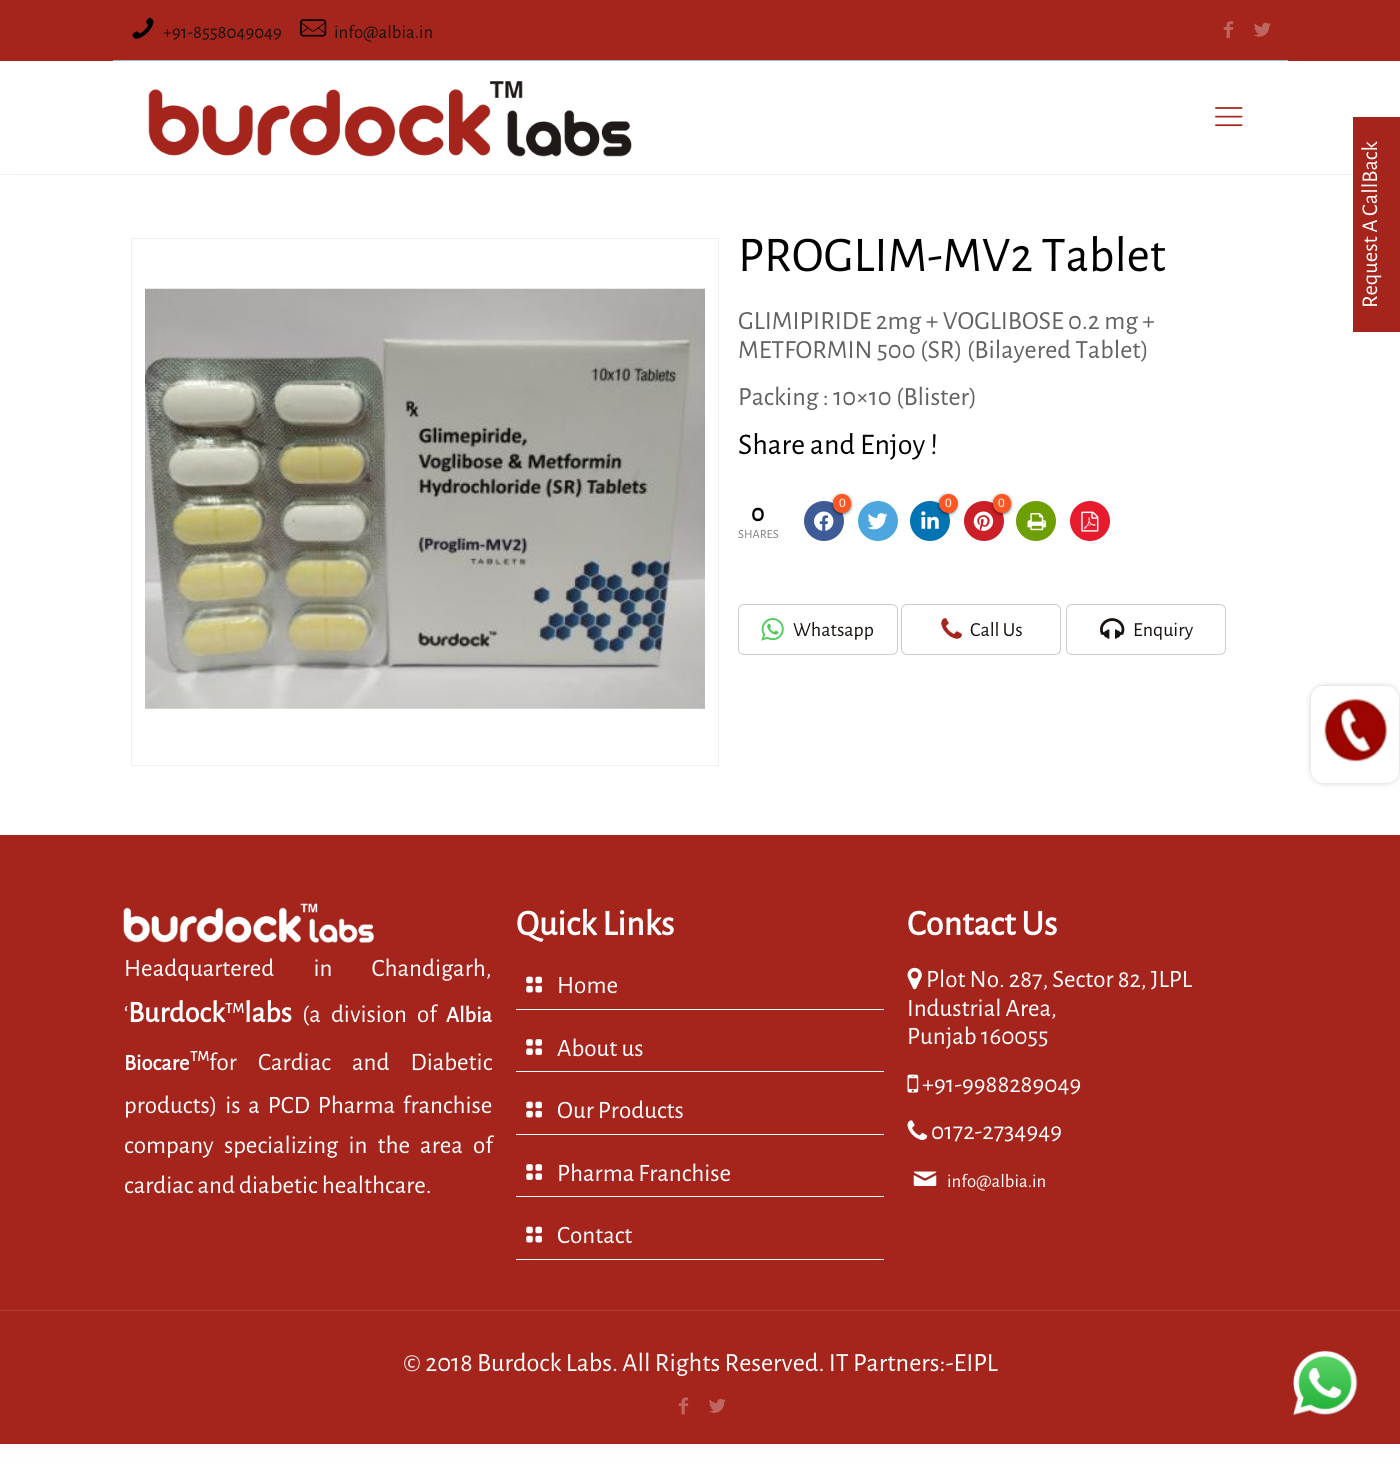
#include <cairo/cairo.h>
#include <math.h>
#include <stddef.h>


static void draw_spaced(cairo_t *cr, double x, double y, const char *s, double letter, double word) {
  cairo_move_to(cr, x, y);
  while (*s) {
    char ch[5] = {0};
    int n = 0;
    do ch[n++] = *s++; while ((*s & 0xC0) == 0x80);
    cairo_show_text(cr, ch);
    cairo_rel_move_to(cr, letter + word * (*ch == ' '), 0);
  }
}

static void rounded_rect(cairo_t *cr, double x, double y, double w, double h, double r) {
  cairo_new_sub_path(cr);
  cairo_arc(cr, x + w - r, y + h - r, r, 0, M_PI / 2);
  cairo_arc(cr, x + r, y + h - r, r, M_PI / 2, M_PI);
  cairo_arc(cr, x + r, y + r, r, M_PI, 1.5 * M_PI);
  cairo_arc(cr, x + w - r, y + r, r, 1.5 * M_PI, 2 * M_PI);
  cairo_close_path(cr);
}

static void draw_shadow(cairo_t *cr, double x, double y, double w, double h, double r, double blur, double alpha) {
  cairo_push_group_with_content(cr, CAIRO_CONTENT_ALPHA);
  cairo_set_operator(cr, CAIRO_OPERATOR_SOURCE);
  for (int i = 15; i >= -15 && fmin(w, h) + blur * i / 3 > 0; i -= 2) {
    double e = blur * i / 6;
    cairo_set_source_rgba(cr, 0, 0, 0, alpha * erfc((i - 1) / 8.5) / 2);
    rounded_rect(cr, x - e, y - e, w + 2 * e, h + 2 * e, fmax(0, fmin(r + e + blur * .6, fmin(w, h) / 2 + e)));
    cairo_fill(cr);
  }
  cairo_pattern_t *soft = cairo_pop_group(cr);
  cairo_mask(cr, soft);
  cairo_pattern_destroy(soft);
}

static void draw_image(cairo_t *cr, const char *path, double x, double y, double w, double h) {
  cairo_surface_t *image = cairo_image_surface_create_from_png(path);
  cairo_save(cr);
  cairo_set_source_surface(cr, image, x, y);
  cairo_rectangle(cr, x, y, w, h);
  cairo_fill(cr);
  cairo_restore(cr);
  cairo_surface_destroy(image);
}

static void draw(cairo_t *cr) {
  cairo_set_source_rgb(cr, 1, 1, 1);
  cairo_paint(cr);
  cairo_set_source_rgb(cr, 0, 0, 0);
  draw_shadow(cr, 0, 0, 1400, 1444, 0, 9.5, 0.06);
  cairo_set_source_rgb(cr, 1, 1, 1);
  cairo_rectangle(cr, 0, 175, 1400, 660);
  cairo_fill(cr);
  cairo_set_source_rgb(cr, 165 / 255.0, 36 / 255.0, 28 / 255.0);
  cairo_rectangle(cr, 0, 0, 1400, 61);
  cairo_fill(cr);
  cairo_set_source_rgb(cr, 159 / 255.0, 188 / 255.0, 207 / 255.0);
  cairo_rectangle(cr, 113, 60, 1175, 1);
  cairo_fill(cr);
  draw_image(cr, "images/1.png", 132, 17, 22, 22);
  draw_image(cr, "images/2.png", 300, 19, 27, 18);
  draw_image(cr, "images/3.png", 1223, 21, 11, 18);
  draw_image(cr, "images/4.png", 1254, 22, 17, 15);
  cairo_set_source_rgb(cr, 1, 1, 1);
  cairo_rectangle(cr, 0, 61, 1400, 113);
  cairo_fill(cr);
  draw_image(cr, "images/5.png", 148, 81, 484, 76);
  draw_image(cr, "images/6.png", 1215, 107, 28, 20);
  cairo_set_source_rgb(cr, 241 / 255.0, 241 / 255.0, 241 / 255.0);
  cairo_rectangle(cr, 0, 174, 6, 1);
  cairo_fill(cr);
  cairo_rectangle(cr, 131.5, 238.5, 587, 527);
  cairo_set_source_rgb(cr, 239 / 255.0, 239 / 255.0, 239 / 255.0);
  cairo_set_line_width(cr, 1);
  cairo_stroke(cr);
  draw_image(cr, "images/7.png", 145, 288, 560, 421);
  cairo_set_source_rgb(cr, 62 / 255.0, 91 / 255.0, 152 / 255.0);
  cairo_arc(cr, 824, 521, 20, 0, 2 * M_PI);
  cairo_fill(cr);
  draw_image(cr, "images/8.png", 814, 511, 20, 20);
  cairo_set_source_rgb(cr, 0, 0, 0);
  draw_shadow(cr, 834, 496, 16, 17, 8, 2, 1);
  cairo_set_source_rgb(cr, 1, 87 / 255.0, 34 / 255.0);
  rounded_rect(cr, 833, 494, 18, 19, 9);
  cairo_fill(cr);
  cairo_set_source_rgb(cr, 77 / 255.0, 167 / 255.0, 222 / 255.0);
  cairo_arc(cr, 878, 521, 20, 0, 2 * M_PI);
  cairo_fill(cr);
  draw_image(cr, "images/9.png", 867, 513, 21, 17);
  cairo_set_source_rgb(cr, 2 / 255.0, 116 / 255.0, 179 / 255.0);
  cairo_arc(cr, 930, 521, 20, 0, 2 * M_PI);
  cairo_fill(cr);
  draw_image(cr, "images/10.png", 921, 511, 18, 18);
  cairo_set_source_rgb(cr, 0, 0, 0);
  draw_shadow(cr, 940, 496, 16, 17, 8, 2, 1);
  cairo_set_source_rgb(cr, 1, 87 / 255.0, 34 / 255.0);
  cairo_arc(cr, 948.5, 503.5, 9.5, 0, 2 * M_PI);
  cairo_fill(cr);
  cairo_set_source_rgb(cr, 203 / 255.0, 32 / 255.0, 39 / 255.0);
  cairo_arc(cr, 984, 521, 20, 0, 2 * M_PI);
  cairo_fill(cr);
  draw_image(cr, "images/11.png", 973, 511, 21, 20);
  cairo_set_source_rgb(cr, 109 / 255.0, 159 / 255.0, 0);
  cairo_arc(cr, 1036, 521, 20, 0, 2 * M_PI);
  cairo_fill(cr);
  cairo_set_source_rgb(cr, 0, 0, 0);
  draw_shadow(cr, 994, 496, 16, 17, 8, 2, 1);
  cairo_set_source_rgb(cr, 1, 87 / 255.0, 34 / 255.0);
  rounded_rect(cr, 993, 494, 18, 19, 9);
  cairo_fill(cr);
  draw_image(cr, "images/12.png", 1027, 513, 20, 18);
  cairo_set_source_rgb(cr, 230 / 255.0, 27 / 255.0, 46 / 255.0);
  cairo_arc(cr, 1090, 521, 20, 0, 2 * M_PI);
  cairo_fill(cr);
  draw_image(cr, "images/13.png", 1081, 511, 18, 21);
  rounded_rect(cr, 738.5, 604.5, 159, 50, 5.5);
  cairo_set_source_rgb(cr, 204 / 255.0, 204 / 255.0, 204 / 255.0);
  cairo_stroke(cr);
  draw_image(cr, "images/14.png", 761, 618, 23, 23);
  rounded_rect(cr, 901.5, 604.5, 159, 50, 5.5);
  cairo_stroke(cr);
  draw_image(cr, "images/15.png", 941, 618, 21, 21);
  rounded_rect(cr, 1066.5, 604.5, 159, 50, 5.5);
  cairo_stroke(cr);
  draw_image(cr, "images/16.png", 1100, 618, 25, 21);
  cairo_set_source_rgb(cr, 165 / 255.0, 36 / 255.0, 28 / 255.0);
  cairo_rectangle(cr, 0, 835, 1400, 609);
  cairo_fill(cr);
  draw_image(cr, "images/17.png", 123, 903, 251, 40);
  draw_image(cr, "images/18.png", 526, 976, 16, 17);
  cairo_set_source_rgb(cr, 1, 1, 1);
  cairo_rectangle(cr, 516, 1009, 368, 1);
  cairo_fill(cr);
  draw_image(cr, "images/19.png", 526, 1039, 16, 16);
  cairo_rectangle(cr, 516, 1071, 368, 1);
  cairo_fill(cr);
  draw_image(cr, "images/18.png", 526, 1101, 16, 17);
  cairo_rectangle(cr, 516, 1134, 368, 1);
  cairo_fill(cr);
  draw_image(cr, "images/19.png", 526, 1164, 16, 16);
  cairo_rectangle(cr, 516, 1196, 368, 1);
  cairo_fill(cr);
  draw_image(cr, "images/18.png", 526, 1226, 16, 17);
  cairo_rectangle(cr, 516, 1259, 368, 1);
  cairo_fill(cr);
  draw_image(cr, "images/20.png", 907, 967, 15, 23);
  draw_image(cr, "images/21.png", 907, 1074, 12, 19);
  draw_image(cr, "images/22.png", 907, 1120, 21, 20);
  draw_image(cr, "images/23.png", 913, 1171, 24, 15);
  cairo_set_source_rgb(cr, 174 / 255.0, 58 / 255.0, 51 / 255.0);
  cairo_rectangle(cr, 0, 1310, 1400, 1);
  cairo_fill(cr);
  draw_image(cr, "images/24.png", 678, 1397, 11, 18);
  draw_image(cr, "images/25.png", 709, 1399, 17, 14);
  cairo_set_source_rgb(cr, 165 / 255.0, 36 / 255.0, 28 / 255.0);
  cairo_rectangle(cr, 1353, 117, 47, 215);
  cairo_fill(cr);
  cairo_save(cr);
  cairo_set_fill_rule(cr, CAIRO_FILL_RULE_EVEN_ODD);
  cairo_new_path(cr);
  cairo_move_to(cr, 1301, 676);
  cairo_line_to(cr, 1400, 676);
  cairo_line_to(cr, 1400, 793);
  cairo_line_to(cr, 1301, 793);
  cairo_close_path(cr);
  cairo_move_to(cr, 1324, 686);
  cairo_line_to(cr, 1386, 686);
  cairo_curve_to(cr, 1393, 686, 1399, 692, 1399, 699);
  cairo_line_to(cr, 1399, 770);
  cairo_curve_to(cr, 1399, 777, 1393, 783, 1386, 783);
  cairo_line_to(cr, 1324, 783);
  cairo_curve_to(cr, 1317, 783, 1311, 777, 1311, 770);
  cairo_line_to(cr, 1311, 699);
  cairo_curve_to(cr, 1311, 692, 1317, 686, 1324, 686);
  cairo_close_path(cr);
  cairo_clip(cr);
  cairo_set_source_rgb(cr, 0, 0, 0);
  draw_shadow(cr, 1311, 686, 88, 97, 13, 3, 0.2);
  cairo_restore(cr);
  draw_image(cr, "images/26.png", 1324, 698, 63, 64);
  draw_image(cr, "images/27.png", 1293, 1350, 65, 66);
  cairo_select_font_face(cr, "Alegreya Sans", CAIRO_FONT_SLANT_NORMAL, CAIRO_FONT_WEIGHT_NORMAL);
  cairo_set_font_size(cr, 18.75);
  cairo_set_source_rgb(cr, 25 / 255.0, 19 / 255.0, 15 / 255.0);
  cairo_move_to(cr, 163, 38);
  cairo_show_text(cr, "+91-8558049049");
  cairo_move_to(cr, 334, 38);
  cairo_show_text(cr, "info@albia.in");
  cairo_set_font_size(cr, 50);
  cairo_set_source_rgb(cr, 0, 0, 0);
  cairo_move_to(cr, 738, 271);
  cairo_show_text(cr, "PROGLIM-MV2 Tablet");
  cairo_set_font_size(cr, 26.25);
  cairo_set_source_rgb(cr, 98 / 255.0, 98 / 255.0, 98 / 255.0);
  cairo_move_to(cr, 738, 329);
  cairo_show_text(cr, "GLIMIPIRIDE 2mg + VOGLIBOSE 0.2 mg +");
  cairo_move_to(cr, 738, 358);
  cairo_show_text(cr, "METFORMIN 500 (SR) (Bilayered Tablet)");
  cairo_move_to(cr, 738, 405);
  cairo_show_text(cr, "Packing : 10×10 (Blister)");
  cairo_set_font_size(cr, 30);
  cairo_set_source_rgb(cr, 0, 0, 0);
  cairo_move_to(cr, 738, 454);
  cairo_show_text(cr, "Share and Enjoy !");
  cairo_select_font_face(cr, "Liberation Sans", CAIRO_FONT_SLANT_NORMAL, CAIRO_FONT_WEIGHT_NORMAL);
  cairo_set_font_size(cr, 12);
  cairo_set_source_rgb(cr, 1, 1, 1);
  cairo_move_to(cr, 839, 507);
  cairo_show_text(cr, "0");
  cairo_move_to(cr, 945, 507);
  cairo_show_text(cr, "0");
  cairo_move_to(cr, 998, 507);
  cairo_show_text(cr, "0");
  cairo_select_font_face(cr, "Alegreya Sans", CAIRO_FONT_SLANT_NORMAL, CAIRO_FONT_WEIGHT_BOLD);
  cairo_set_font_size(cr, 25);
  cairo_set_source_rgb(cr, 0, 0, 0);
  cairo_move_to(cr, 751, 521);
  cairo_show_text(cr, "0");
  cairo_select_font_face(cr, "Alegreya Sans", CAIRO_FONT_SLANT_NORMAL, CAIRO_FONT_WEIGHT_NORMAL);
  cairo_set_font_size(cr, 12.5);
  cairo_set_source_rgb(cr, 128 / 255.0, 128 / 255.0, 128 / 255.0);
  cairo_move_to(cr, 738, 538);
  cairo_show_text(cr, "SHARES");
  cairo_set_font_size(cr, 20);
  cairo_set_source_rgb(cr, 25 / 255.0, 19 / 255.0, 15 / 255.0);
  cairo_move_to(cr, 793, 636);
  cairo_show_text(cr, "Whatsapp");
  cairo_move_to(cr, 970, 636);
  cairo_show_text(cr, "Call Us");
  cairo_move_to(cr, 1133, 636);
  cairo_show_text(cr, "Enquiry");
  cairo_set_font_size(cr, 25);
  cairo_set_source_rgb(cr, 1, 1, 1);
  draw_spaced(cr, 124, 976, "Headquartered in Chandigarh,", 0, 35);
  cairo_move_to(cr, 124, 1022);
  cairo_show_text(cr, "‘");
  cairo_select_font_face(cr, "Alegreya Sans", CAIRO_FONT_SLANT_NORMAL, CAIRO_FONT_WEIGHT_BOLD);
  cairo_set_font_size(cr, 30);
  cairo_move_to(cr, 128, 1022);
  cairo_show_text(cr, "Burdock");
  cairo_set_font_size(cr, 15);
  cairo_move_to(cr, 225, 1013);
  cairo_show_text(cr, "TM");
  cairo_set_font_size(cr, 30);
  cairo_move_to(cr, 244, 1022);
  cairo_show_text(cr, "labs");
  cairo_select_font_face(cr, "Alegreya Sans", CAIRO_FONT_SLANT_NORMAL, CAIRO_FONT_WEIGHT_NORMAL);
  cairo_set_font_size(cr, 25);
  draw_spaced(cr, 302, 1022, "(a division of", 0, 6);
  cairo_select_font_face(cr, "Alegreya Sans", CAIRO_FONT_SLANT_NORMAL, CAIRO_FONT_WEIGHT_BOLD);
  cairo_set_font_size(cr, 22.5);
  cairo_move_to(cr, 446, 1022);
  cairo_show_text(cr, "Albia");
  cairo_move_to(cr, 124, 1070);
  cairo_show_text(cr, "Biocare");
  cairo_set_font_size(cr, 15);
  cairo_move_to(cr, 190, 1061);
  cairo_show_text(cr, "TM");
  cairo_select_font_face(cr, "Alegreya Sans", CAIRO_FONT_SLANT_NORMAL, CAIRO_FONT_WEIGHT_NORMAL);
  cairo_set_font_size(cr, 25);
  draw_spaced(cr, 209, 1070, "for Cardiac and Diabetic", 0, 17);
  draw_spaced(cr, 124, 1113, "products) is a PCD Pharma franchise", 0, 3.75);
  draw_spaced(cr, 124, 1153, "company specializing in the area of", 0, 6);
  cairo_move_to(cr, 124, 1193);
  cairo_show_text(cr, "cardiac and diabetic healthcare.");
  cairo_select_font_face(cr, "Alegreya Sans", CAIRO_FONT_SLANT_NORMAL, CAIRO_FONT_WEIGHT_BOLD);
  cairo_set_font_size(cr, 36);
  cairo_move_to(cr, 516, 935);
  cairo_show_text(cr, "Quick Links");
  cairo_select_font_face(cr, "Alegreya Sans", CAIRO_FONT_SLANT_NORMAL, CAIRO_FONT_WEIGHT_NORMAL);
  cairo_set_font_size(cr, 25);
  cairo_move_to(cr, 557, 993);
  cairo_show_text(cr, "Home");
  cairo_move_to(cr, 557, 1056);
  cairo_show_text(cr, "About us");
  cairo_move_to(cr, 557, 1118);
  cairo_show_text(cr, "Our Products");
  cairo_move_to(cr, 557, 1181);
  cairo_show_text(cr, "Pharma Franchise");
  cairo_move_to(cr, 557, 1243);
  cairo_show_text(cr, "Contact");
  cairo_select_font_face(cr, "Alegreya Sans", CAIRO_FONT_SLANT_NORMAL, CAIRO_FONT_WEIGHT_BOLD);
  cairo_set_font_size(cr, 36);
  cairo_move_to(cr, 907, 935);
  cairo_show_text(cr, "Contact Us");
  cairo_select_font_face(cr, "Alegreya Sans", CAIRO_FONT_SLANT_NORMAL, CAIRO_FONT_WEIGHT_NORMAL);
  cairo_set_font_size(cr, 25);
  cairo_move_to(cr, 926, 987);
  cairo_show_text(cr, "Plot No. 287, Sector 82, JLPL");
  cairo_move_to(cr, 907, 1016);
  cairo_show_text(cr, "Industrial Area,");
  cairo_move_to(cr, 907, 1044);
  cairo_show_text(cr, "Punjab 160055");
  cairo_move_to(cr, 922, 1092);
  cairo_show_text(cr, "+91-9988289049");
  cairo_move_to(cr, 931, 1139);
  cairo_show_text(cr, "0172-2734949");
  cairo_set_font_size(cr, 18.75);
  cairo_move_to(cr, 947, 1187);
  cairo_show_text(cr, "info@albia.in");
  cairo_set_font_size(cr, 26.25);
  cairo_move_to(cr, 403, 1371);
  cairo_show_text(cr, "© 2018 Burdock Labs. All Rights Reserved. IT Partners:-EIPL");
  cairo_set_font_size(cr, 22.5);
  cairo_save(cr);
  cairo_translate(cr, 1377, 308);
  cairo_rotate(cr, -90 * M_PI / 180);
  cairo_move_to(cr, 0, 0);
  cairo_show_text(cr, "Request A CallBack");
  cairo_restore(cr);
}

int main(void) {
  cairo_surface_t *surface = cairo_image_surface_create(CAIRO_FORMAT_RGB24, 1400, 1467);
  cairo_t *cr = cairo_create(surface);
  cairo_font_options_t *options = cairo_font_options_create();
  cairo_font_options_set_hint_metrics(options, CAIRO_HINT_METRICS_OFF);
  cairo_font_options_set_hint_style(options, CAIRO_HINT_STYLE_NONE);
  cairo_set_font_options(cr, options);
  cairo_set_miter_limit(cr, 4);
  draw(cr);
  cairo_surface_write_to_png(surface, "out.png");
  cairo_font_options_destroy(options);
  cairo_destroy(cr);
  cairo_surface_destroy(surface);
  return 0;
}
